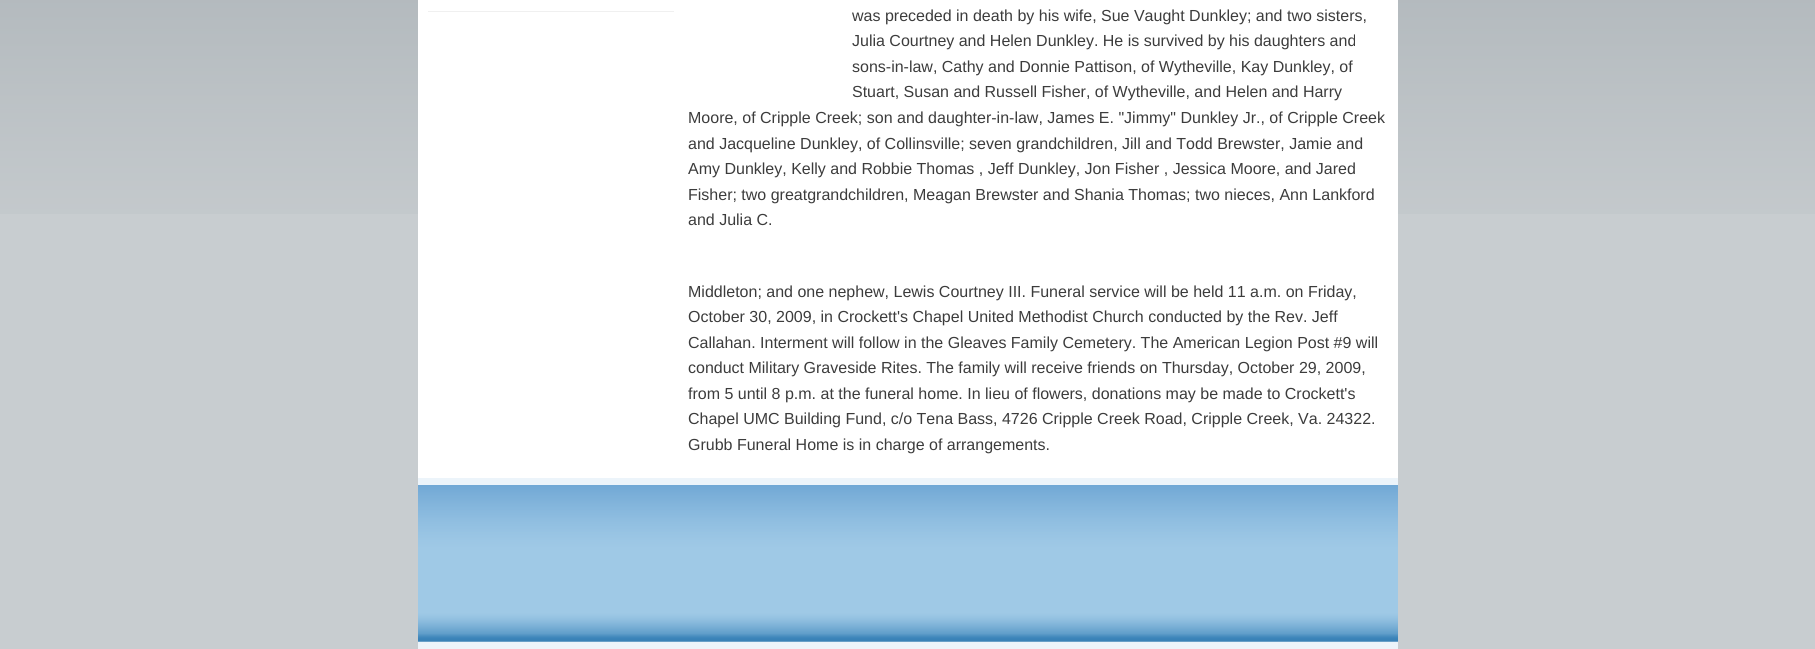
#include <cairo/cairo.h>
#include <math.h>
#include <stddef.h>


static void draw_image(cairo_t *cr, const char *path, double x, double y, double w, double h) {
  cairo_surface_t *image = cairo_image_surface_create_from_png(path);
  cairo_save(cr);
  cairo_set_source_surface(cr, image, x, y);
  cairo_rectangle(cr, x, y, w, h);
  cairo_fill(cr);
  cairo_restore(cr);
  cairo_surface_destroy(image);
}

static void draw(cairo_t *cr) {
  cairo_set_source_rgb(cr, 200 / 255.0, 205 / 255.0, 208 / 255.0);
  cairo_paint(cr);
  draw_image(cr, "images/1.png", 0, 0, 1815, 214);
  cairo_set_source_rgb(cr, 1, 1, 1);
  cairo_rectangle(cr, 418, 0, 980, 478);
  cairo_fill(cr);
  cairo_set_source_rgb(cr, 240 / 255.0, 240 / 255.0, 240 / 255.0);
  cairo_rectangle(cr, 428, 11, 246, 1);
  cairo_fill(cr);
  draw_image(cr, "images/2.png", 418, 478, 980, 171);
  cairo_select_font_face(cr, "Liberation Sans", CAIRO_FONT_SLANT_NORMAL, CAIRO_FONT_WEIGHT_NORMAL);
  cairo_set_font_size(cr, 16);
  cairo_set_source_rgb(cr, 60 / 255.0, 60 / 255.0, 60 / 255.0);
  cairo_move_to(cr, 852, 21);
  cairo_show_text(cr, "was preceded in death by his wife, Sue Vaught Dunkley; and two sisters,");
  cairo_move_to(cr, 852, 46);
  cairo_show_text(cr, "Julia Courtney and Helen Dunkley. He is survived by his daughters and");
  cairo_move_to(cr, 852, 72);
  cairo_show_text(cr, "sons-in-law, Cathy and Donnie Pattison, of Wytheville, Kay Dunkley, of");
  cairo_move_to(cr, 852, 97);
  cairo_show_text(cr, "Stuart, Susan and Russell Fisher, of Wytheville, and Helen and Harry");
  cairo_move_to(cr, 688, 123);
  cairo_show_text(cr, "Moore, of Cripple Creek; son and daughter-in-law, James E. \"Jimmy\" Dunkley Jr., of Cripple Creek");
  cairo_move_to(cr, 688, 149);
  cairo_show_text(cr, "and Jacqueline Dunkley, of Collinsville; seven grandchildren, Jill and Todd Brewster, Jamie and");
  cairo_move_to(cr, 688, 174);
  cairo_show_text(cr, "Amy Dunkley, Kelly and Robbie Thomas , Jeff Dunkley, Jon Fisher , Jessica Moore, and Jared");
  cairo_move_to(cr, 688, 200);
  cairo_show_text(cr, "Fisher; two greatgrandchildren, Meagan Brewster and Shania Thomas; two nieces, Ann Lankford");
  cairo_move_to(cr, 688, 225);
  cairo_show_text(cr, "and Julia C.");
  cairo_move_to(cr, 688, 297);
  cairo_show_text(cr, "Middleton; and one nephew, Lewis Courtney III. Funeral service will be held 11 a.m. on Friday,");
  cairo_move_to(cr, 688, 322);
  cairo_show_text(cr, "October 30, 2009, in Crockett's Chapel United Methodist Church conducted by the Rev. Jeff");
  cairo_move_to(cr, 688, 348);
  cairo_show_text(cr, "Callahan. Interment will follow in the Gleaves Family Cemetery. The American Legion Post #9 will");
  cairo_move_to(cr, 688, 373);
  cairo_show_text(cr, "conduct Military Graveside Rites. The family will receive friends on Thursday, October 29, 2009,");
  cairo_move_to(cr, 688, 399);
  cairo_show_text(cr, "from 5 until 8 p.m. at the funeral home. In lieu of flowers, donations may be made to Crockett's");
  cairo_move_to(cr, 688, 424);
  cairo_show_text(cr, "Chapel UMC Building Fund, c/o Tena Bass, 4726 Cripple Creek Road, Cripple Creek, Va. 24322.");
  cairo_move_to(cr, 688, 450);
  cairo_show_text(cr, "Grubb Funeral Home is in charge of arrangements.");
}

int main(void) {
  cairo_surface_t *surface = cairo_image_surface_create(CAIRO_FORMAT_RGB24, 1815, 649);
  cairo_t *cr = cairo_create(surface);
  cairo_font_options_t *options = cairo_font_options_create();
  cairo_font_options_set_hint_metrics(options, CAIRO_HINT_METRICS_OFF);
  cairo_font_options_set_hint_style(options, CAIRO_HINT_STYLE_NONE);
  cairo_set_font_options(cr, options);
  cairo_set_miter_limit(cr, 4);
  draw(cr);
  cairo_surface_write_to_png(surface, "out.png");
  cairo_font_options_destroy(options);
  cairo_destroy(cr);
  cairo_surface_destroy(surface);
  return 0;
}
